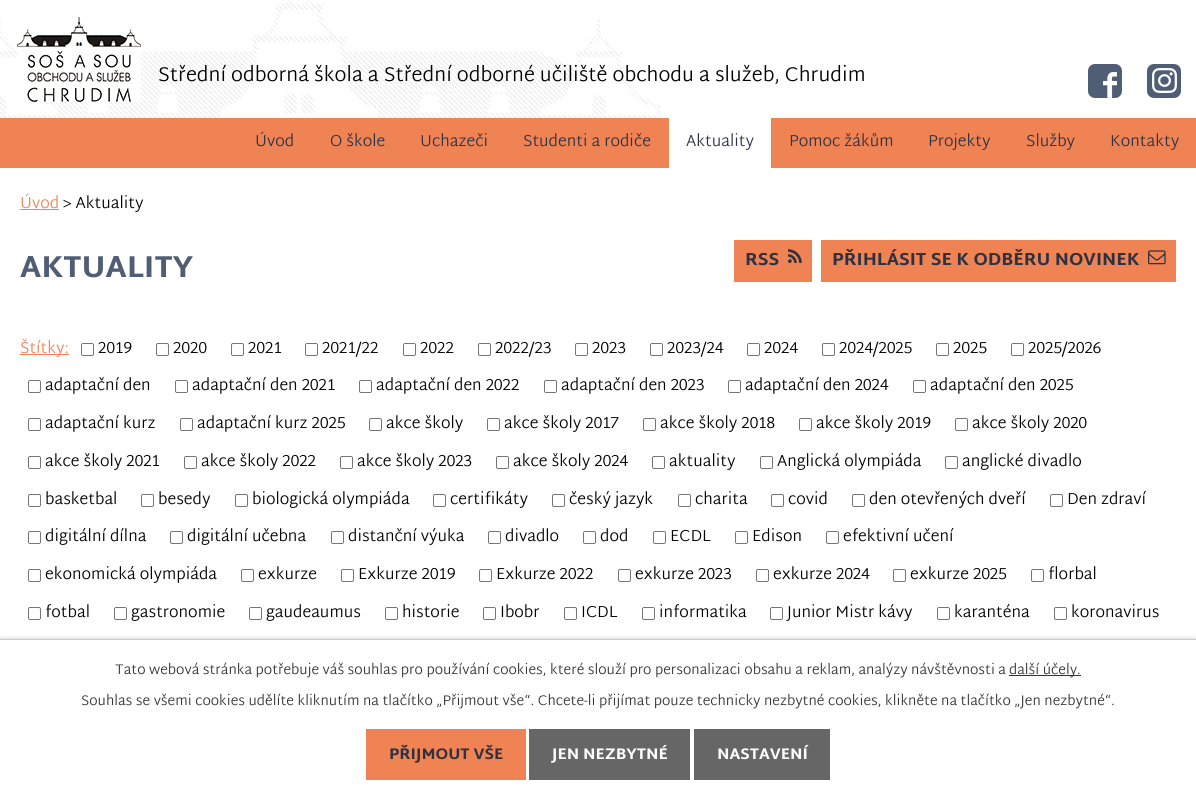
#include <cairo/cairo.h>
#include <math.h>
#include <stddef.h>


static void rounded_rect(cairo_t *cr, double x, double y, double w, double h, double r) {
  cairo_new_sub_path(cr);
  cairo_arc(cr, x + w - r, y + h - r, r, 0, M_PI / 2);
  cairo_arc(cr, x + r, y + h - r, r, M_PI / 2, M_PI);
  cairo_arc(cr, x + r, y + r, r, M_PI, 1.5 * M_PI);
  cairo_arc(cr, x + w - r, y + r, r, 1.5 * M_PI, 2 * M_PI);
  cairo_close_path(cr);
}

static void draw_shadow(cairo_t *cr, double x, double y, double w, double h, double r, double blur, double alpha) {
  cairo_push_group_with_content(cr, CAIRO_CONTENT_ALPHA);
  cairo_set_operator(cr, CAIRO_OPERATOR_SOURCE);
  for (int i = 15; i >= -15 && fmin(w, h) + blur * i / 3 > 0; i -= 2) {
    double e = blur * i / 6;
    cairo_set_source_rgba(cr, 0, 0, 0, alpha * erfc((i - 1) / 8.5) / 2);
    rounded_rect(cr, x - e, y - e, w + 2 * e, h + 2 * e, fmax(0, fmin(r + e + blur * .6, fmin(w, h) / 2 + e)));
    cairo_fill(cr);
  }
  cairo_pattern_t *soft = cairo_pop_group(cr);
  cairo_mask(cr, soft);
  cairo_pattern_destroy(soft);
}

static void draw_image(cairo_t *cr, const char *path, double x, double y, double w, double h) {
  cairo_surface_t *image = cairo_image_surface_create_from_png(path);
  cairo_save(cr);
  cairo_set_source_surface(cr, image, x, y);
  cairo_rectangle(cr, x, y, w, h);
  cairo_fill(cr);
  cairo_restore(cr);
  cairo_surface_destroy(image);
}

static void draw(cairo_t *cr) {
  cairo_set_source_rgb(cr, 1, 1, 1);
  cairo_paint(cr);
  draw_image(cr, "images/1.png", 0, 0, 660, 118);
  draw_image(cr, "images/2.png", 17, 17, 124, 85);
  cairo_set_source_rgb(cr, 79 / 255.0, 93 / 255.0, 117 / 255.0);
  rounded_rect(cr, 1088, 64, 34, 34, 7);
  cairo_fill(cr);
  draw_image(cr, "images/3.png", 1103, 72, 14, 26);
  rounded_rect(cr, 1147, 64, 34, 34, 7);
  cairo_fill(cr);
  draw_image(cr, "images/4.png", 1152, 68, 25, 25);
  cairo_set_source_rgb(cr, 239 / 255.0, 131 / 255.0, 84 / 255.0);
  cairo_rectangle(cr, 0, 118, 1196, 50);
  cairo_fill(cr);
  cairo_set_source_rgb(cr, 1, 1, 1);
  cairo_rectangle(cr, 669, 118, 102, 50);
  cairo_fill(cr);
  cairo_set_source_rgb(cr, 239 / 255.0, 131 / 255.0, 84 / 255.0);
  cairo_rectangle(cr, 20, 209, 39, 1);
  cairo_fill(cr);
  cairo_rectangle(cr, 734, 240, 78, 42);
  cairo_fill(cr);
  draw_image(cr, "images/5.png", 788, 249, 14, 14);
  cairo_rectangle(cr, 821, 240, 355, 42);
  cairo_fill(cr);
  draw_image(cr, "images/6.png", 1148, 250, 18, 15);
  cairo_rectangle(cr, 20, 354, 49, 1);
  cairo_fill(cr);
  rounded_rect(cr, 81.5, 343.5, 12, 12, 1.5);
  cairo_set_source_rgb(cr, 118 / 255.0, 118 / 255.0, 118 / 255.0);
  cairo_set_line_width(cr, 1);
  cairo_stroke(cr);
  rounded_rect(cr, 156.5, 343.5, 12, 12, 1.5);
  cairo_stroke(cr);
  rounded_rect(cr, 231.5, 343.5, 12, 12, 1.5);
  cairo_stroke(cr);
  rounded_rect(cr, 305.5, 343.5, 12, 12, 1.5);
  cairo_stroke(cr);
  rounded_rect(cr, 403.5, 343.5, 12, 12, 1.5);
  cairo_stroke(cr);
  rounded_rect(cr, 478.5, 343.5, 12, 12, 1.5);
  cairo_stroke(cr);
  rounded_rect(cr, 575.5, 343.5, 12, 12, 1.5);
  cairo_stroke(cr);
  rounded_rect(cr, 650.5, 343.5, 12, 12, 1.5);
  cairo_stroke(cr);
  rounded_rect(cr, 747.5, 343.5, 12, 12, 1.5);
  cairo_stroke(cr);
  rounded_rect(cr, 822.5, 343.5, 12, 12, 1.5);
  cairo_stroke(cr);
  rounded_rect(cr, 936.5, 343.5, 12, 12, 1.5);
  cairo_stroke(cr);
  rounded_rect(cr, 1011.5, 343.5, 12, 12, 1.5);
  cairo_stroke(cr);
  rounded_rect(cr, 28.5, 380.5, 12, 12, 1.5);
  cairo_stroke(cr);
  rounded_rect(cr, 175.5, 380.5, 12, 12, 1.5);
  cairo_stroke(cr);
  rounded_rect(cr, 359.5, 380.5, 12, 12, 1.5);
  cairo_stroke(cr);
  rounded_rect(cr, 544.5, 380.5, 12, 12, 1.5);
  cairo_stroke(cr);
  rounded_rect(cr, 728.5, 380.5, 12, 12, 1.5);
  cairo_stroke(cr);
  rounded_rect(cr, 913.5, 380.5, 12, 12, 1.5);
  cairo_stroke(cr);
  rounded_rect(cr, 28.5, 418.5, 12, 12, 1.5);
  cairo_stroke(cr);
  rounded_rect(cr, 180.5, 418.5, 12, 12, 1.5);
  cairo_stroke(cr);
  rounded_rect(cr, 369.5, 418.5, 12, 12, 1.5);
  cairo_stroke(cr);
  rounded_rect(cr, 487.5, 418.5, 12, 12, 1.5);
  cairo_stroke(cr);
  rounded_rect(cr, 643.5, 418.5, 12, 12, 1.5);
  cairo_stroke(cr);
  rounded_rect(cr, 799.5, 418.5, 12, 12, 1.5);
  cairo_stroke(cr);
  rounded_rect(cr, 955.5, 418.5, 12, 12, 1.5);
  cairo_stroke(cr);
  rounded_rect(cr, 28.5, 456.5, 12, 12, 1.5);
  cairo_stroke(cr);
  rounded_rect(cr, 184.5, 456.5, 12, 12, 1.5);
  cairo_stroke(cr);
  rounded_rect(cr, 340.5, 456.5, 12, 12, 1.5);
  cairo_stroke(cr);
  rounded_rect(cr, 496.5, 456.5, 12, 12, 1.5);
  cairo_stroke(cr);
  rounded_rect(cr, 652.5, 456.5, 12, 12, 1.5);
  cairo_stroke(cr);
  rounded_rect(cr, 760.5, 456.5, 12, 12, 1.5);
  cairo_stroke(cr);
  rounded_rect(cr, 945.5, 456.5, 12, 12, 1.5);
  cairo_stroke(cr);
  rounded_rect(cr, 28.5, 494.5, 12, 12, 1.5);
  cairo_stroke(cr);
  rounded_rect(cr, 141.5, 494.5, 12, 12, 1.5);
  cairo_stroke(cr);
  rounded_rect(cr, 235.5, 494.5, 12, 12, 1.5);
  cairo_stroke(cr);
  rounded_rect(cr, 433.5, 494.5, 12, 12, 1.5);
  cairo_stroke(cr);
  rounded_rect(cr, 552.5, 494.5, 12, 12, 1.5);
  cairo_stroke(cr);
  rounded_rect(cr, 678.5, 494.5, 12, 12, 1.5);
  cairo_stroke(cr);
  rounded_rect(cr, 771.5, 494.5, 12, 12, 1.5);
  cairo_stroke(cr);
  rounded_rect(cr, 852.5, 494.5, 12, 12, 1.5);
  cairo_stroke(cr);
  rounded_rect(cr, 1050.5, 494.5, 12, 12, 1.5);
  cairo_stroke(cr);
  rounded_rect(cr, 28.5, 531.5, 12, 12, 1.5);
  cairo_stroke(cr);
  rounded_rect(cr, 170.5, 531.5, 12, 12, 1.5);
  cairo_stroke(cr);
  rounded_rect(cr, 331.5, 531.5, 12, 12, 1.5);
  cairo_stroke(cr);
  rounded_rect(cr, 488.5, 531.5, 12, 12, 1.5);
  cairo_stroke(cr);
  rounded_rect(cr, 583.5, 531.5, 12, 12, 1.5);
  cairo_stroke(cr);
  rounded_rect(cr, 653.5, 531.5, 12, 12, 1.5);
  cairo_stroke(cr);
  rounded_rect(cr, 735.5, 531.5, 12, 12, 1.5);
  cairo_stroke(cr);
  rounded_rect(cr, 826.5, 531.5, 12, 12, 1.5);
  cairo_stroke(cr);
  rounded_rect(cr, 28.5, 569.5, 12, 12, 1.5);
  cairo_stroke(cr);
  rounded_rect(cr, 241.5, 569.5, 12, 12, 1.5);
  cairo_stroke(cr);
  rounded_rect(cr, 341.5, 569.5, 12, 12, 1.5);
  cairo_stroke(cr);
  rounded_rect(cr, 479.5, 569.5, 12, 12, 1.5);
  cairo_stroke(cr);
  rounded_rect(cr, 618.5, 569.5, 12, 12, 1.5);
  cairo_stroke(cr);
  rounded_rect(cr, 756.5, 569.5, 12, 12, 1.5);
  cairo_stroke(cr);
  rounded_rect(cr, 893.5, 569.5, 12, 12, 1.5);
  cairo_stroke(cr);
  rounded_rect(cr, 1031.5, 569.5, 12, 12, 1.5);
  cairo_stroke(cr);
  rounded_rect(cr, 28.5, 607.5, 12, 12, 1.5);
  cairo_stroke(cr);
  rounded_rect(cr, 114.5, 607.5, 12, 12, 1.5);
  cairo_stroke(cr);
  rounded_rect(cr, 249.5, 607.5, 12, 12, 1.5);
  cairo_stroke(cr);
  rounded_rect(cr, 385.5, 607.5, 12, 12, 1.5);
  cairo_stroke(cr);
  rounded_rect(cr, 483.5, 607.5, 12, 12, 1.5);
  cairo_stroke(cr);
  rounded_rect(cr, 564.5, 607.5, 12, 12, 1.5);
  cairo_stroke(cr);
  rounded_rect(cr, 642.5, 607.5, 12, 12, 1.5);
  cairo_stroke(cr);
  rounded_rect(cr, 770.5, 607.5, 12, 12, 1.5);
  cairo_stroke(cr);
  rounded_rect(cr, 937.5, 607.5, 12, 12, 1.5);
  cairo_stroke(cr);
  rounded_rect(cr, 1054.5, 607.5, 12, 12, 1.5);
  cairo_stroke(cr);
  cairo_set_source_rgb(cr, 0, 0, 0);
  draw_shadow(cr, 0, 639, 1196, 159, 0, 2.5, 0.2);
  cairo_set_source_rgb(cr, 1, 1, 1);
  cairo_rectangle(cr, 0, 640, 1196, 158);
  cairo_fill(cr);
  cairo_set_source_rgb(cr, 204 / 255.0, 204 / 255.0, 204 / 255.0);
  cairo_rectangle(cr, 0, 639, 1196, 1);
  cairo_fill(cr);
  cairo_set_source_rgb(cr, 51 / 255.0, 51 / 255.0, 51 / 255.0);
  cairo_rectangle(cr, 1009, 675, 72, 1);
  cairo_fill(cr);
  cairo_set_source_rgb(cr, 239 / 255.0, 131 / 255.0, 84 / 255.0);
  cairo_rectangle(cr, 366, 729, 160, 51);
  cairo_fill(cr);
  cairo_set_source_rgb(cr, 102 / 255.0, 102 / 255.0, 102 / 255.0);
  cairo_rectangle(cr, 529, 729, 161, 51);
  cairo_fill(cr);
  cairo_rectangle(cr, 694, 729, 136, 51);
  cairo_fill(cr);
  cairo_select_font_face(cr, "Martel Sans Light", CAIRO_FONT_SLANT_NORMAL, CAIRO_FONT_WEIGHT_NORMAL);
  cairo_set_font_size(cr, 20);
  cairo_set_source_rgb(cr, 0, 0, 0);
  cairo_move_to(cr, 158, 81);
  cairo_show_text(cr, "Střední odborná škola a Střední odborné učiliště obchodu a služeb, Chrudim");
  cairo_set_font_size(cr, 16);
  cairo_set_source_rgb(cr, 45 / 255.0, 49 / 255.0, 66 / 255.0);
  cairo_move_to(cr, 255, 146);
  cairo_show_text(cr, "Úvod");
  cairo_move_to(cr, 330, 146);
  cairo_show_text(cr, "O škole");
  cairo_move_to(cr, 420, 146);
  cairo_show_text(cr, "Uchazeči");
  cairo_move_to(cr, 523, 146);
  cairo_show_text(cr, "Studenti a rodiče");
  cairo_move_to(cr, 686, 146);
  cairo_show_text(cr, "Aktuality");
  cairo_move_to(cr, 789, 146);
  cairo_show_text(cr, "Pomoc žákům");
  cairo_move_to(cr, 928, 146);
  cairo_show_text(cr, "Projekty");
  cairo_move_to(cr, 1026, 146);
  cairo_show_text(cr, "Služby");
  cairo_move_to(cr, 1110, 146);
  cairo_show_text(cr, "Kontakty");
  cairo_set_source_rgb(cr, 239 / 255.0, 131 / 255.0, 84 / 255.0);
  cairo_move_to(cr, 20, 208);
  cairo_show_text(cr, "Úvod");
  cairo_set_source_rgb(cr, 0, 0, 0);
  cairo_move_to(cr, 63, 208);
  cairo_show_text(cr, "> Aktuality");
  cairo_select_font_face(cr, "Martel Sans ExtraBold", CAIRO_FONT_SLANT_NORMAL, CAIRO_FONT_WEIGHT_NORMAL);
  cairo_set_font_size(cr, 30.5);
  cairo_set_source_rgb(cr, 79 / 255.0, 93 / 255.0, 117 / 255.0);
  cairo_move_to(cr, 20, 277);
  cairo_show_text(cr, "AKTUALITY");
  cairo_set_font_size(cr, 17.6);
  cairo_set_source_rgb(cr, 45 / 255.0, 49 / 255.0, 66 / 255.0);
  cairo_move_to(cr, 745, 265);
  cairo_show_text(cr, "RSS");
  cairo_move_to(cr, 832, 265);
  cairo_show_text(cr, "PŘIHLÁSIT SE K ODBĚRU NOVINEK");
  cairo_select_font_face(cr, "Martel Sans Light", CAIRO_FONT_SLANT_NORMAL, CAIRO_FONT_WEIGHT_NORMAL);
  cairo_set_font_size(cr, 16);
  cairo_set_source_rgb(cr, 239 / 255.0, 131 / 255.0, 84 / 255.0);
  cairo_move_to(cr, 20, 353);
  cairo_show_text(cr, "Štítky:");
  cairo_set_source_rgb(cr, 0, 0, 0);
  cairo_move_to(cr, 98, 353);
  cairo_show_text(cr, "2019");
  cairo_move_to(cr, 173, 353);
  cairo_show_text(cr, "2020");
  cairo_move_to(cr, 248, 353);
  cairo_show_text(cr, "2021");
  cairo_move_to(cr, 322, 353);
  cairo_show_text(cr, "2021/22");
  cairo_move_to(cr, 420, 353);
  cairo_show_text(cr, "2022");
  cairo_move_to(cr, 495, 353);
  cairo_show_text(cr, "2022/23");
  cairo_move_to(cr, 592, 353);
  cairo_show_text(cr, "2023");
  cairo_move_to(cr, 667, 353);
  cairo_show_text(cr, "2023/24");
  cairo_move_to(cr, 764, 353);
  cairo_show_text(cr, "2024");
  cairo_move_to(cr, 839, 353);
  cairo_show_text(cr, "2024/2025");
  cairo_move_to(cr, 953, 353);
  cairo_show_text(cr, "2025");
  cairo_move_to(cr, 1028, 353);
  cairo_show_text(cr, "2025/2026");
  cairo_move_to(cr, 45, 390);
  cairo_show_text(cr, "adaptační den");
  cairo_move_to(cr, 192, 390);
  cairo_show_text(cr, "adaptační den 2021");
  cairo_move_to(cr, 376, 390);
  cairo_show_text(cr, "adaptační den 2022");
  cairo_move_to(cr, 561, 390);
  cairo_show_text(cr, "adaptační den 2023");
  cairo_move_to(cr, 745, 390);
  cairo_show_text(cr, "adaptační den 2024");
  cairo_move_to(cr, 930, 390);
  cairo_show_text(cr, "adaptační den 2025");
  cairo_move_to(cr, 45, 428);
  cairo_show_text(cr, "adaptační kurz");
  cairo_move_to(cr, 197, 428);
  cairo_show_text(cr, "adaptační kurz 2025");
  cairo_move_to(cr, 386, 428);
  cairo_show_text(cr, "akce školy");
  cairo_move_to(cr, 504, 428);
  cairo_show_text(cr, "akce školy 2017");
  cairo_move_to(cr, 660, 428);
  cairo_show_text(cr, "akce školy 2018");
  cairo_move_to(cr, 816, 428);
  cairo_show_text(cr, "akce školy 2019");
  cairo_move_to(cr, 972, 428);
  cairo_show_text(cr, "akce školy 2020");
  cairo_move_to(cr, 45, 466);
  cairo_show_text(cr, "akce školy 2021");
  cairo_move_to(cr, 201, 466);
  cairo_show_text(cr, "akce školy 2022");
  cairo_move_to(cr, 357, 466);
  cairo_show_text(cr, "akce školy 2023");
  cairo_move_to(cr, 513, 466);
  cairo_show_text(cr, "akce školy 2024");
  cairo_move_to(cr, 669, 466);
  cairo_show_text(cr, "aktuality");
  cairo_move_to(cr, 777, 466);
  cairo_show_text(cr, "Anglická olympiáda");
  cairo_move_to(cr, 962, 466);
  cairo_show_text(cr, "anglické divadlo");
  cairo_move_to(cr, 45, 504);
  cairo_show_text(cr, "basketbal");
  cairo_move_to(cr, 158, 504);
  cairo_show_text(cr, "besedy");
  cairo_move_to(cr, 252, 504);
  cairo_show_text(cr, "biologická olympiáda");
  cairo_move_to(cr, 450, 504);
  cairo_show_text(cr, "certifikáty");
  cairo_move_to(cr, 569, 504);
  cairo_show_text(cr, "český jazyk");
  cairo_move_to(cr, 695, 504);
  cairo_show_text(cr, "charita");
  cairo_move_to(cr, 788, 504);
  cairo_show_text(cr, "covid");
  cairo_move_to(cr, 869, 504);
  cairo_show_text(cr, "den otevřených dveří");
  cairo_move_to(cr, 1067, 504);
  cairo_show_text(cr, "Den zdraví");
  cairo_move_to(cr, 45, 541);
  cairo_show_text(cr, "digitální dílna");
  cairo_move_to(cr, 187, 541);
  cairo_show_text(cr, "digitální učebna");
  cairo_move_to(cr, 348, 541);
  cairo_show_text(cr, "distanční výuka");
  cairo_move_to(cr, 505, 541);
  cairo_show_text(cr, "divadlo");
  cairo_move_to(cr, 600, 541);
  cairo_show_text(cr, "dod");
  cairo_move_to(cr, 670, 541);
  cairo_show_text(cr, "ECDL");
  cairo_move_to(cr, 752, 541);
  cairo_show_text(cr, "Edison");
  cairo_move_to(cr, 843, 541);
  cairo_show_text(cr, "efektivní učení");
  cairo_move_to(cr, 45, 579);
  cairo_show_text(cr, "ekonomická olympiáda");
  cairo_move_to(cr, 258, 579);
  cairo_show_text(cr, "exkurze");
  cairo_move_to(cr, 358, 579);
  cairo_show_text(cr, "Exkurze 2019");
  cairo_move_to(cr, 496, 579);
  cairo_show_text(cr, "Exkurze 2022");
  cairo_move_to(cr, 635, 579);
  cairo_show_text(cr, "exkurze 2023");
  cairo_move_to(cr, 773, 579);
  cairo_show_text(cr, "exkurze 2024");
  cairo_move_to(cr, 910, 579);
  cairo_show_text(cr, "exkurze 2025");
  cairo_move_to(cr, 1048, 579);
  cairo_show_text(cr, "florbal");
  cairo_move_to(cr, 45, 617);
  cairo_show_text(cr, "fotbal");
  cairo_move_to(cr, 131, 617);
  cairo_show_text(cr, "gastronomie");
  cairo_move_to(cr, 266, 617);
  cairo_show_text(cr, "gaudeaumus");
  cairo_move_to(cr, 402, 617);
  cairo_show_text(cr, "historie");
  cairo_move_to(cr, 500, 617);
  cairo_show_text(cr, "Ibobr");
  cairo_move_to(cr, 581, 617);
  cairo_show_text(cr, "ICDL");
  cairo_move_to(cr, 659, 617);
  cairo_show_text(cr, "informatika");
  cairo_move_to(cr, 787, 617);
  cairo_show_text(cr, "Junior Mistr kávy");
  cairo_move_to(cr, 954, 617);
  cairo_show_text(cr, "karanténa");
  cairo_move_to(cr, 1071, 617);
  cairo_show_text(cr, "koronavirus");
  cairo_set_font_size(cr, 14);
  cairo_set_source_rgb(cr, 51 / 255.0, 51 / 255.0, 51 / 255.0);
  cairo_move_to(cr, 115, 674);
  cairo_show_text(cr, "Tato webová stránka potřebuje váš souhlas pro používání cookies, které slouží pro personalizaci obsahu a reklam, analýzy návštěvnosti a");
  cairo_move_to(cr, 1009, 674);
  cairo_show_text(cr, "další účely.");
  cairo_move_to(cr, 81, 705);
  cairo_show_text(cr, "Souhlas se všemi cookies udělíte kliknutím na tlačítko „Přijmout vše“. Chcete-li přijímat pouze technicky nezbytné cookies, klikněte na tlačítko „Jen nezbytné“.");
  cairo_select_font_face(cr, "Martel Sans ExtraBold", CAIRO_FONT_SLANT_NORMAL, CAIRO_FONT_WEIGHT_NORMAL);
  cairo_set_font_size(cr, 15.5);
  cairo_set_source_rgb(cr, 45 / 255.0, 49 / 255.0, 66 / 255.0);
  cairo_move_to(cr, 389, 759);
  cairo_show_text(cr, "PŘIJMOUT VŠE");
  cairo_set_source_rgb(cr, 1, 1, 1);
  cairo_move_to(cr, 552, 759);
  cairo_show_text(cr, "JEN NEZBYTNÉ");
  cairo_move_to(cr, 717, 759);
  cairo_show_text(cr, "NASTAVENÍ");
}

int main(void) {
  cairo_surface_t *surface = cairo_image_surface_create(CAIRO_FORMAT_RGB24, 1196, 798);
  cairo_t *cr = cairo_create(surface);
  cairo_font_options_t *options = cairo_font_options_create();
  cairo_font_options_set_hint_metrics(options, CAIRO_HINT_METRICS_OFF);
  cairo_font_options_set_hint_style(options, CAIRO_HINT_STYLE_NONE);
  cairo_set_font_options(cr, options);
  cairo_set_miter_limit(cr, 4);
  draw(cr);
  cairo_surface_write_to_png(surface, "out.png");
  cairo_font_options_destroy(options);
  cairo_destroy(cr);
  cairo_surface_destroy(surface);
  return 0;
}
